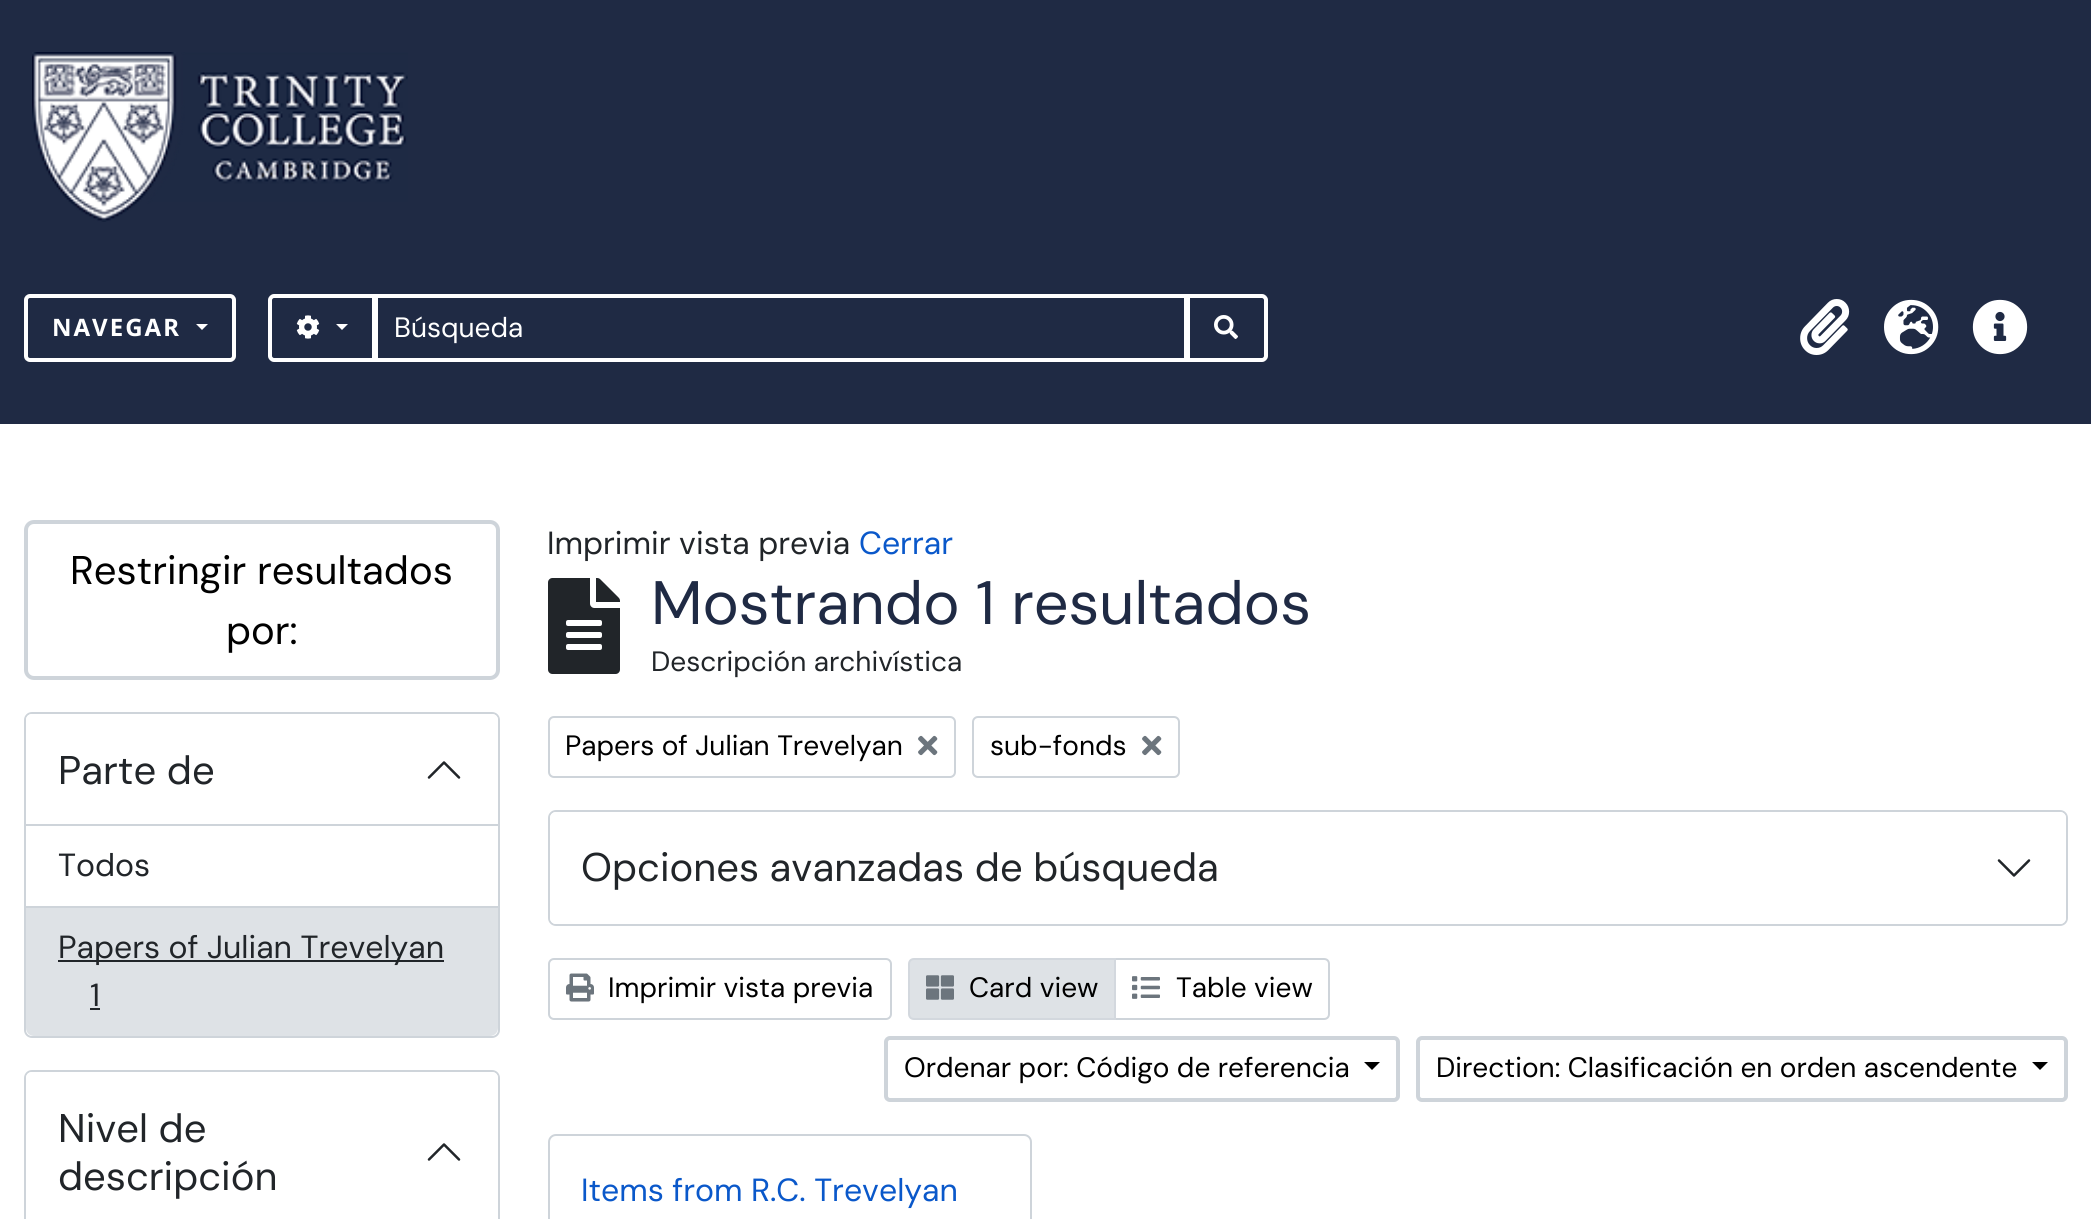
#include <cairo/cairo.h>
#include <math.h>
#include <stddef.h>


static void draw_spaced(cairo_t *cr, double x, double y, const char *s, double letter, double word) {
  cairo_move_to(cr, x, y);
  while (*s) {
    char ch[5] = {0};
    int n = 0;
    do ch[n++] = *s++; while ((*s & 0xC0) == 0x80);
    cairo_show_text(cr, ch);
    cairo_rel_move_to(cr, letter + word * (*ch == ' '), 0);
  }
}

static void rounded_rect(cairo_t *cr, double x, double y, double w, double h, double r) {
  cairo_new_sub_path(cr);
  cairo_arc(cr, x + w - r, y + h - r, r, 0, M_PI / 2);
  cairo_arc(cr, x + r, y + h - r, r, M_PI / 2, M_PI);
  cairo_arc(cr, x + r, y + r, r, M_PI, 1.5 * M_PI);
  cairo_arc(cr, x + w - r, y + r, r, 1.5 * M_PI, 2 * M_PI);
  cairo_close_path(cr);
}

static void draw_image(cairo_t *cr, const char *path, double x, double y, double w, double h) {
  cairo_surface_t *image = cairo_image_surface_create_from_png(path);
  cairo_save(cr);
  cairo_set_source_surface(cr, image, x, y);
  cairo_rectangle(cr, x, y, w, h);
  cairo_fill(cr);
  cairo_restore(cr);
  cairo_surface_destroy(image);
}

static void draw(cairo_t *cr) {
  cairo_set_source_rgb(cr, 1, 1, 1);
  cairo_paint(cr);
  cairo_set_source_rgb(cr, 31 / 255.0, 42 / 255.0, 68 / 255.0);
  cairo_rectangle(cr, 0, 0, 2091, 20);
  cairo_fill(cr);
  cairo_rectangle(cr, 0, 20, 2091, 404);
  cairo_fill(cr);
  draw_image(cr, "images/1.png", 32, 52, 376, 170);
  rounded_rect(cr, 26, 296, 208, 64, 4);
  cairo_set_source_rgb(cr, 1, 1, 1);
  cairo_set_line_width(cr, 4);
  cairo_stroke(cr);
  cairo_new_path(cr);
  cairo_move_to(cr, 196, 324);
  cairo_line_to(cr, 208, 324);
  cairo_line_to(cr, 202, 330);
  cairo_close_path(cr);
  cairo_fill(cr);
  cairo_rectangle(cr, 376, 296, 810, 64);
  cairo_stroke(cr);
  cairo_set_source_rgb(cr, 31 / 255.0, 42 / 255.0, 68 / 255.0);
  cairo_new_path(cr);
  cairo_move_to(cr, 274, 296);
  cairo_line_to(cr, 374, 296);
  cairo_line_to(cr, 374, 360);
  cairo_line_to(cr, 274, 360);
  cairo_curve_to(cr, 272, 360, 270, 358, 270, 356);
  cairo_line_to(cr, 270, 300);
  cairo_curve_to(cr, 270, 298, 272, 296, 274, 296);
  cairo_close_path(cr);
  cairo_fill_preserve(cr);
  cairo_set_source_rgb(cr, 1, 1, 1);
  cairo_stroke(cr);
  draw_image(cr, "images/2.png", 296, 315, 24, 24);
  cairo_new_path(cr);
  cairo_move_to(cr, 336, 324);
  cairo_line_to(cr, 348, 324);
  cairo_line_to(cr, 342, 330);
  cairo_close_path(cr);
  cairo_fill(cr);
  cairo_set_source_rgb(cr, 31 / 255.0, 42 / 255.0, 68 / 255.0);
  cairo_new_path(cr);
  cairo_move_to(cr, 1188, 296);
  cairo_line_to(cr, 1262, 296);
  cairo_curve_to(cr, 1264, 296, 1266, 298, 1266, 300);
  cairo_line_to(cr, 1266, 356);
  cairo_curve_to(cr, 1266, 358, 1264, 360, 1262, 360);
  cairo_line_to(cr, 1188, 360);
  cairo_close_path(cr);
  cairo_fill_preserve(cr);
  cairo_set_source_rgb(cr, 1, 1, 1);
  cairo_stroke(cr);
  draw_image(cr, "images/3.png", 1214, 315, 24, 24);
  draw_image(cr, "images/4.png", 1800, 299, 50, 56);
  draw_image(cr, "images/5.png", 1884, 299, 55, 56);
  draw_image(cr, "images/6.png", 1972, 299, 56, 56);
  rounded_rect(cr, 26, 522, 472, 156, 8);
  cairo_set_source_rgb(cr, 206 / 255.0, 212 / 255.0, 218 / 255.0);
  cairo_stroke(cr);
  rounded_rect(cr, 25, 713, 474, 324, 7);
  cairo_set_line_width(cr, 2);
  cairo_stroke(cr);
  cairo_set_source_rgb(cr, 1, 1, 1);
  cairo_new_path(cr);
  cairo_move_to(cr, 32, 714);
  cairo_line_to(cr, 492, 714);
  cairo_curve_to(cr, 495.5, 714, 498, 716.5, 498, 720);
  cairo_line_to(cr, 498, 826);
  cairo_line_to(cr, 26, 826);
  cairo_line_to(cr, 26, 720);
  cairo_curve_to(cr, 26, 716.5, 28.5, 714, 32, 714);
  cairo_close_path(cr);
  cairo_fill(cr);
  cairo_set_source_rgb(cr, 206 / 255.0, 212 / 255.0, 218 / 255.0);
  cairo_rectangle(cr, 26, 824, 472, 2);
  cairo_fill(cr);
  draw_image(cr, "images/7.png", 427, 761, 34, 18);
  cairo_rectangle(cr, 26, 906, 472, 2);
  cairo_fill(cr);
  cairo_set_source_rgb(cr, 222 / 255.0, 226 / 255.0, 230 / 255.0);
  cairo_new_path(cr);
  cairo_move_to(cr, 26, 908);
  cairo_line_to(cr, 498, 908);
  cairo_line_to(cr, 498, 1028);
  cairo_curve_to(cr, 498, 1032.5, 494.5, 1036, 490, 1036);
  cairo_line_to(cr, 34, 1036);
  cairo_curve_to(cr, 29.5, 1036, 26, 1032.5, 26, 1028);
  cairo_close_path(cr);
  cairo_fill(cr);
  cairo_set_source_rgb(cr, 33 / 255.0, 37 / 255.0, 41 / 255.0);
  cairo_rectangle(cr, 58, 960, 386, 2);
  cairo_fill(cr);
  cairo_rectangle(cr, 90, 1008, 10, 2);
  cairo_fill(cr);
  rounded_rect(cr, 25, 1071, 474, 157, 7);
  cairo_set_source_rgb(cr, 206 / 255.0, 212 / 255.0, 218 / 255.0);
  cairo_stroke(cr);
  cairo_set_source_rgb(cr, 1, 1, 1);
  cairo_new_path(cr);
  cairo_move_to(cr, 32, 1072);
  cairo_line_to(cr, 492, 1072);
  cairo_curve_to(cr, 495.5, 1072, 498, 1074.5, 498, 1078);
  cairo_line_to(cr, 498, 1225);
  cairo_line_to(cr, 26, 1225);
  cairo_line_to(cr, 26, 1078);
  cairo_curve_to(cr, 26, 1074.5, 28.5, 1072, 32, 1072);
  cairo_close_path(cr);
  cairo_fill(cr);
  draw_image(cr, "images/7.png", 427, 1143, 34, 18);
  draw_image(cr, "images/8.png", 548, 578, 72, 96);
  rounded_rect(cr, 549, 717, 406, 60, 5);
  cairo_set_source_rgb(cr, 206 / 255.0, 212 / 255.0, 218 / 255.0);
  cairo_stroke(cr);
  draw_image(cr, "images/9.png", 918, 735, 20, 21);
  rounded_rect(cr, 973, 717, 206, 60, 5);
  cairo_stroke(cr);
  draw_image(cr, "images/9.png", 1142, 735, 20, 21);
  rounded_rect(cr, 549, 811, 1518, 114, 7);
  cairo_stroke(cr);
  cairo_set_source_rgb(cr, 1, 1, 1);
  rounded_rect(cr, 550, 812, 1516, 112, 6);
  cairo_fill(cr);
  draw_image(cr, "images/10.png", 1997, 859, 34, 18);
  rounded_rect(cr, 549, 959, 342, 60, 5);
  cairo_set_source_rgb(cr, 206 / 255.0, 212 / 255.0, 218 / 255.0);
  cairo_stroke(cr);
  draw_image(cr, "images/11.png", 566, 973, 28, 29);
  cairo_new_path(cr);
  cairo_move_to(cr, 1115, 959);
  cairo_line_to(cr, 1324, 959);
  cairo_curve_to(cr, 1327, 959, 1329, 961, 1329, 964);
  cairo_line_to(cr, 1329, 1014);
  cairo_curve_to(cr, 1329, 1017, 1327, 1019, 1324, 1019);
  cairo_line_to(cr, 1115, 1019);
  cairo_close_path(cr);
  cairo_stroke(cr);
  cairo_set_source_rgb(cr, 222 / 255.0, 226 / 255.0, 230 / 255.0);
  cairo_new_path(cr);
  cairo_move_to(cr, 914, 959);
  cairo_line_to(cr, 1115, 959);
  cairo_line_to(cr, 1115, 1019);
  cairo_line_to(cr, 914, 1019);
  cairo_curve_to(cr, 911, 1019, 909, 1017, 909, 1014);
  cairo_line_to(cr, 909, 964);
  cairo_curve_to(cr, 909, 961, 911, 959, 914, 959);
  cairo_close_path(cr);
  cairo_fill_preserve(cr);
  cairo_set_source_rgb(cr, 211 / 255.0, 216 / 255.0, 222 / 255.0);
  cairo_stroke(cr);
  draw_image(cr, "images/12.png", 926, 975, 28, 25);
  draw_image(cr, "images/13.png", 1132, 976, 28, 23);
  rounded_rect(cr, 886, 1038, 512, 62, 4);
  cairo_set_source_rgb(cr, 206 / 255.0, 212 / 255.0, 218 / 255.0);
  cairo_set_line_width(cr, 4);
  cairo_stroke(cr);
  cairo_set_source_rgb(cr, 0, 0, 0);
  cairo_new_path(cr);
  cairo_move_to(cr, 1364, 1062);
  cairo_line_to(cr, 1380, 1062);
  cairo_line_to(cr, 1372, 1070);
  cairo_close_path(cr);
  cairo_fill(cr);
  rounded_rect(cr, 1418, 1038, 648, 62, 4);
  cairo_set_source_rgb(cr, 206 / 255.0, 212 / 255.0, 218 / 255.0);
  cairo_stroke(cr);
  cairo_set_source_rgb(cr, 0, 0, 0);
  cairo_new_path(cr);
  cairo_move_to(cr, 2032, 1062);
  cairo_line_to(cr, 2048, 1062);
  cairo_line_to(cr, 2040, 1070);
  cairo_close_path(cr);
  cairo_fill(cr);
  rounded_rect(cr, 549, 1135, 482, 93, 7);
  cairo_set_source_rgb(cr, 206 / 255.0, 212 / 255.0, 218 / 255.0);
  cairo_set_line_width(cr, 2);
  cairo_stroke(cr);
  cairo_select_font_face(cr, "Noto Sans", CAIRO_FONT_SLANT_NORMAL, CAIRO_FONT_WEIGHT_BOLD);
  cairo_set_font_size(cr, 24);
  cairo_set_source_rgb(cr, 1, 1, 1);
  draw_spaced(cr, 52, 336, "NAVEGAR", 2, 0);
  cairo_select_font_face(cr, "DM Sans", CAIRO_FONT_SLANT_NORMAL, CAIRO_FONT_WEIGHT_NORMAL);
  cairo_set_font_size(cr, 28);
  cairo_move_to(cr, 394, 337);
  cairo_show_text(cr, "Búsqueda");
  cairo_set_font_size(cr, 40);
  cairo_set_source_rgb(cr, 0, 0, 0);
  cairo_move_to(cr, 70, 584);
  cairo_show_text(cr, "Restringir resultados");
  cairo_move_to(cr, 226, 644);
  cairo_show_text(cr, "por:");
  cairo_set_source_rgb(cr, 33 / 255.0, 37 / 255.0, 41 / 255.0);
  cairo_move_to(cr, 58, 784);
  cairo_show_text(cr, "Parte de");
  cairo_set_font_size(cr, 32);
  cairo_move_to(cr, 58, 876);
  cairo_show_text(cr, "Todos");
  cairo_move_to(cr, 58, 958);
  cairo_show_text(cr, "Papers of Julian Trevelyan");
  cairo_move_to(cr, 90, 1006);
  cairo_show_text(cr, "1");
  cairo_set_font_size(cr, 40);
  cairo_move_to(cr, 58, 1142);
  cairo_show_text(cr, "Nivel de");
  cairo_move_to(cr, 58, 1190);
  cairo_show_text(cr, "descripción");
  cairo_set_font_size(cr, 32);
  cairo_move_to(cr, 547, 554);
  cairo_show_text(cr, "Imprimir vista previa");
  cairo_set_source_rgb(cr, 10 / 255.0, 88 / 255.0, 202 / 255.0);
  cairo_move_to(cr, 859, 554);
  cairo_show_text(cr, "Cerrar");
  cairo_set_font_size(cr, 61.25);
  cairo_set_source_rgb(cr, 31 / 255.0, 42 / 255.0, 68 / 255.0);
  cairo_move_to(cr, 651, 624);
  cairo_show_text(cr, "Mostrando 1 resultados");
  cairo_set_font_size(cr, 28);
  cairo_set_source_rgb(cr, 33 / 255.0, 37 / 255.0, 41 / 255.0);
  cairo_move_to(cr, 651, 671);
  cairo_show_text(cr, "Descripción archivística");
  cairo_set_source_rgb(cr, 0, 0, 0);
  cairo_move_to(cr, 565, 755);
  cairo_show_text(cr, "Papers of Julian Trevelyan");
  cairo_move_to(cr, 990, 755);
  cairo_show_text(cr, "sub-fonds");
  cairo_set_font_size(cr, 40);
  cairo_set_source_rgb(cr, 33 / 255.0, 37 / 255.0, 41 / 255.0);
  cairo_move_to(cr, 581, 881);
  cairo_show_text(cr, "Opciones avanzadas de búsqueda");
  cairo_set_font_size(cr, 28);
  cairo_set_source_rgb(cr, 0, 0, 0);
  cairo_move_to(cr, 608, 997);
  cairo_show_text(cr, "Imprimir vista previa");
  cairo_move_to(cr, 969, 997);
  cairo_show_text(cr, "Card view");
  cairo_move_to(cr, 1176, 997);
  cairo_show_text(cr, "Table view");
  cairo_move_to(cr, 904, 1077);
  cairo_show_text(cr, "Ordenar por: Código de referencia");
  cairo_move_to(cr, 1436, 1077);
  cairo_show_text(cr, "Direction: Clasificación en orden ascendente");
  cairo_set_font_size(cr, 32);
  cairo_set_source_rgb(cr, 10 / 255.0, 88 / 255.0, 202 / 255.0);
  cairo_move_to(cr, 581, 1201);
  cairo_show_text(cr, "Items from R.C. Trevelyan");
}

int main(void) {
  cairo_surface_t *surface = cairo_image_surface_create(CAIRO_FORMAT_RGB24, 2091, 1219);
  cairo_t *cr = cairo_create(surface);
  cairo_font_options_t *options = cairo_font_options_create();
  cairo_font_options_set_hint_metrics(options, CAIRO_HINT_METRICS_OFF);
  cairo_font_options_set_hint_style(options, CAIRO_HINT_STYLE_NONE);
  cairo_set_font_options(cr, options);
  cairo_set_miter_limit(cr, 4);
  draw(cr);
  cairo_surface_write_to_png(surface, "out.png");
  cairo_font_options_destroy(options);
  cairo_destroy(cr);
  cairo_surface_destroy(surface);
  return 0;
}
